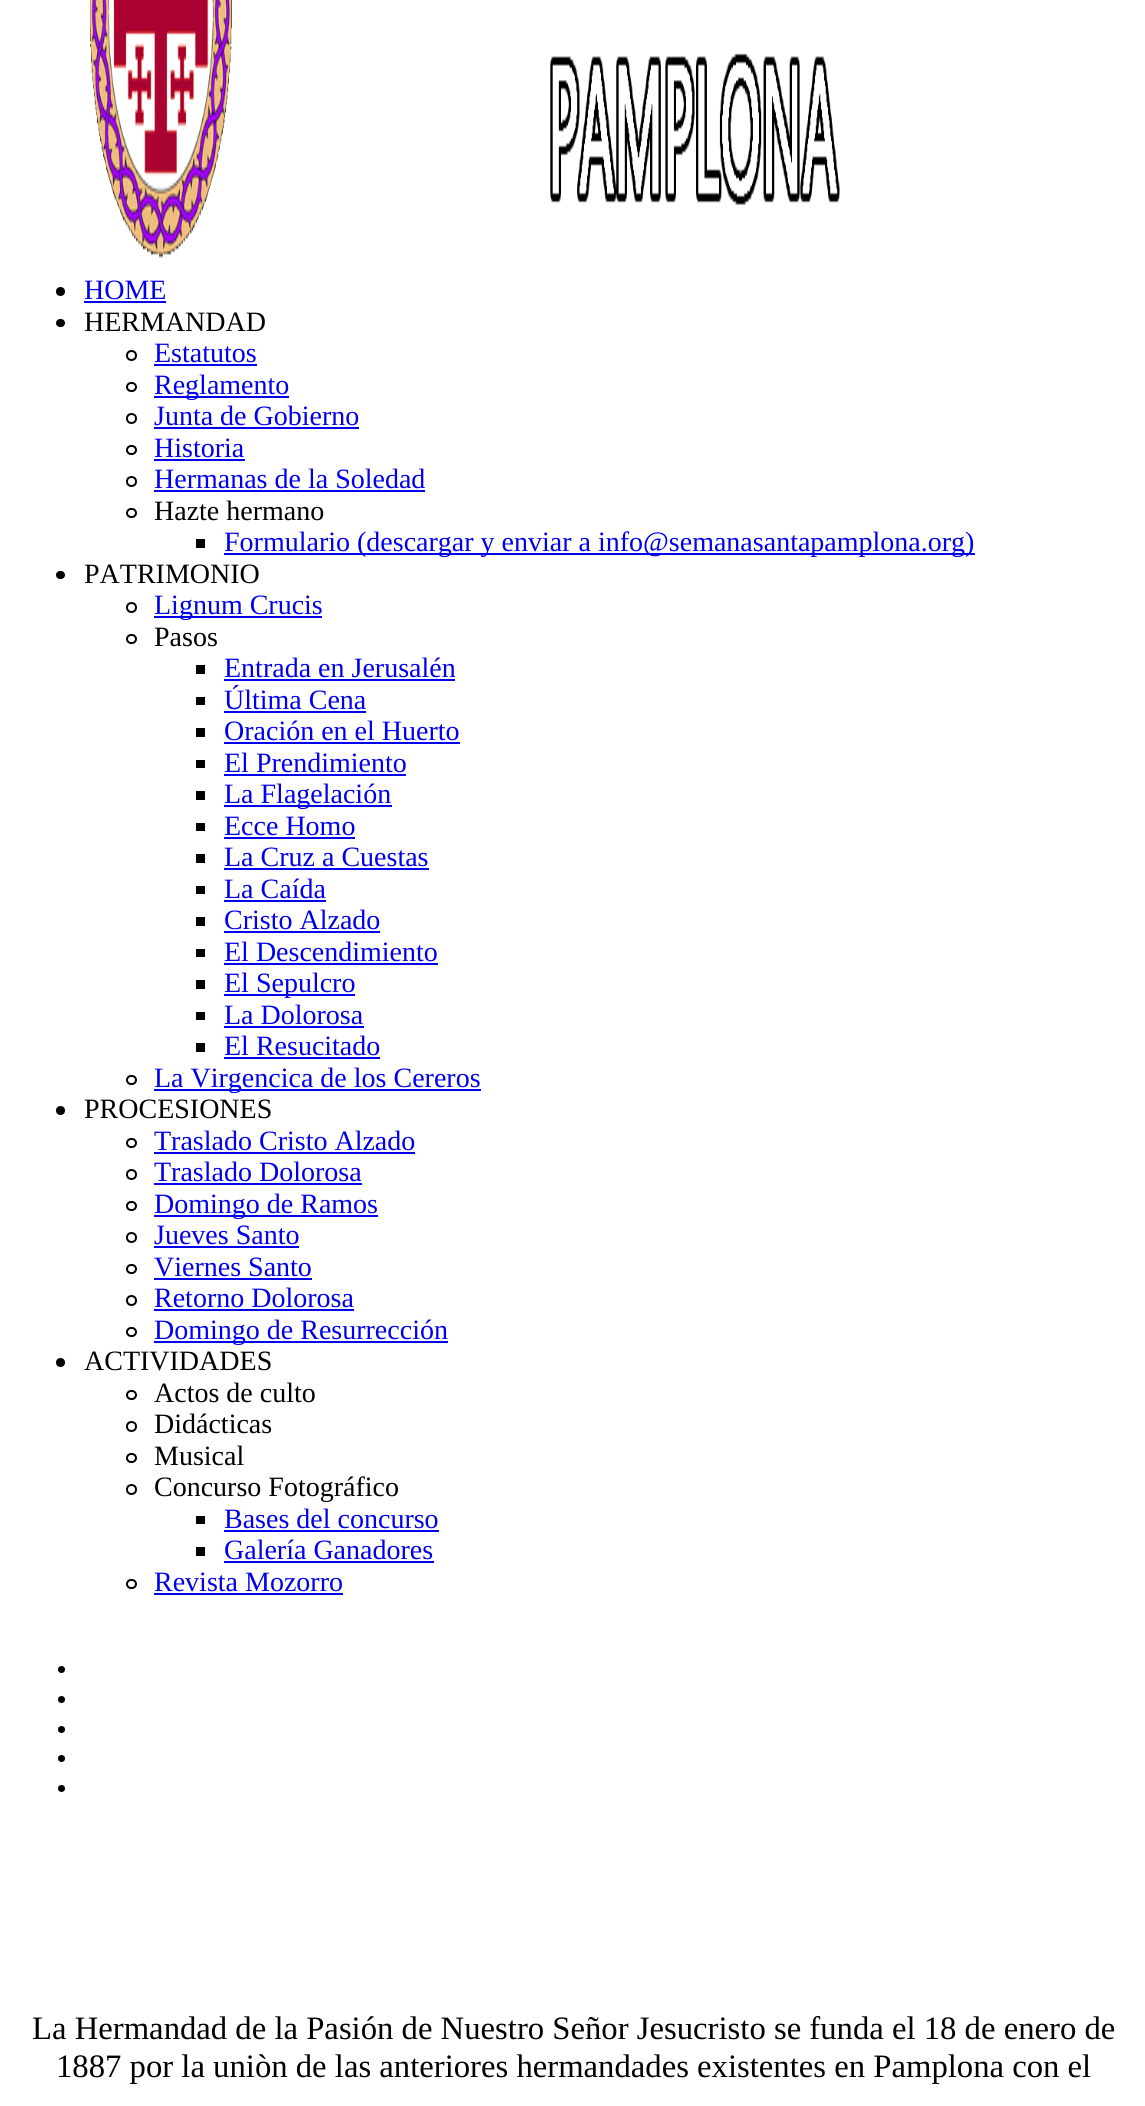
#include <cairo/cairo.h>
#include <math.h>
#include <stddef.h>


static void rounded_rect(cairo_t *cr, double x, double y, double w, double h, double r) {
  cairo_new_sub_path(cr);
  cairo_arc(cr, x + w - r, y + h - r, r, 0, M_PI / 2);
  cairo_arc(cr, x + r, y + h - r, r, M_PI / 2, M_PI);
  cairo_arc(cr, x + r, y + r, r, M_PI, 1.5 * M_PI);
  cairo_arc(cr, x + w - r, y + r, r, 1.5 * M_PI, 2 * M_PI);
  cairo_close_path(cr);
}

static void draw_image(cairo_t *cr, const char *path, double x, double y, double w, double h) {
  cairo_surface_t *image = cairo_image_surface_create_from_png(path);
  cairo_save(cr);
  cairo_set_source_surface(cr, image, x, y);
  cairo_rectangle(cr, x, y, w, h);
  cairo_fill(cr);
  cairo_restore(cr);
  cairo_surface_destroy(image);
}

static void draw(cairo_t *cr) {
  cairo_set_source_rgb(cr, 1, 1, 1);
  cairo_paint(cr);
  draw_image(cr, "images/1.png", 90, 0, 750, 258);
  cairo_set_source_rgb(cr, 0, 0, 0);
  cairo_arc(cr, 60.5, 291.5, 4.5, 0, 2 * M_PI);
  cairo_fill(cr);
  cairo_set_source_rgb(cr, 0, 0, 238 / 255.0);
  cairo_rectangle(cr, 84, 301, 82, 2);
  cairo_fill(cr);
  cairo_set_source_rgb(cr, 0, 0, 0);
  rounded_rect(cr, 56, 319, 9, 8, 4);
  cairo_fill(cr);
  cairo_arc(cr, 131.5, 355.5, 4.5, 0, 2 * M_PI);
  cairo_stroke(cr);
  cairo_set_source_rgb(cr, 0, 0, 238 / 255.0);
  cairo_rectangle(cr, 154, 364, 103, 2);
  cairo_fill(cr);
  rounded_rect(cr, 127, 383, 9, 8, 4);
  cairo_set_source_rgb(cr, 0, 0, 0);
  cairo_stroke(cr);
  cairo_set_source_rgb(cr, 0, 0, 238 / 255.0);
  cairo_rectangle(cr, 154, 396, 135, 2);
  cairo_fill(cr);
  cairo_arc(cr, 131.5, 418.5, 4.5, 0, 2 * M_PI);
  cairo_set_source_rgb(cr, 0, 0, 0);
  cairo_stroke(cr);
  cairo_set_source_rgb(cr, 0, 0, 238 / 255.0);
  cairo_rectangle(cr, 154, 427, 205, 2);
  cairo_fill(cr);
  rounded_rect(cr, 127, 446, 9, 8, 4);
  cairo_set_source_rgb(cr, 0, 0, 0);
  cairo_stroke(cr);
  cairo_set_source_rgb(cr, 0, 0, 238 / 255.0);
  cairo_rectangle(cr, 154, 459, 91, 2);
  cairo_fill(cr);
  cairo_arc(cr, 131.5, 481.5, 4.5, 0, 2 * M_PI);
  cairo_set_source_rgb(cr, 0, 0, 0);
  cairo_stroke(cr);
  cairo_set_source_rgb(cr, 0, 0, 238 / 255.0);
  cairo_rectangle(cr, 154, 490, 271, 2);
  cairo_fill(cr);
  rounded_rect(cr, 127, 509, 9, 8, 4);
  cairo_set_source_rgb(cr, 0, 0, 0);
  cairo_stroke(cr);
  cairo_rectangle(cr, 196, 539, 9, 9);
  cairo_fill(cr);
  cairo_set_source_rgb(cr, 0, 0, 238 / 255.0);
  cairo_rectangle(cr, 224, 553, 751, 2);
  cairo_fill(cr);
  cairo_set_source_rgb(cr, 0, 0, 0);
  rounded_rect(cr, 56, 571, 9, 8, 4);
  cairo_fill(cr);
  cairo_arc(cr, 131.5, 607.5, 4.5, 0, 2 * M_PI);
  cairo_stroke(cr);
  cairo_set_source_rgb(cr, 0, 0, 238 / 255.0);
  cairo_rectangle(cr, 154, 616, 168, 2);
  cairo_fill(cr);
  rounded_rect(cr, 127, 635, 9, 8, 4);
  cairo_set_source_rgb(cr, 0, 0, 0);
  cairo_stroke(cr);
  cairo_rectangle(cr, 196, 665, 9, 9);
  cairo_fill(cr);
  cairo_set_source_rgb(cr, 0, 0, 238 / 255.0);
  cairo_rectangle(cr, 224, 679, 231, 2);
  cairo_fill(cr);
  cairo_set_source_rgb(cr, 0, 0, 0);
  cairo_rectangle(cr, 196, 697, 9, 8);
  cairo_fill(cr);
  cairo_set_source_rgb(cr, 0, 0, 238 / 255.0);
  cairo_rectangle(cr, 224, 711, 142, 2);
  cairo_fill(cr);
  cairo_set_source_rgb(cr, 0, 0, 0);
  cairo_rectangle(cr, 196, 728, 9, 9);
  cairo_fill(cr);
  cairo_set_source_rgb(cr, 0, 0, 238 / 255.0);
  cairo_rectangle(cr, 224, 742, 236, 2);
  cairo_fill(cr);
  cairo_set_source_rgb(cr, 0, 0, 0);
  cairo_rectangle(cr, 196, 760, 9, 8);
  cairo_fill(cr);
  cairo_set_source_rgb(cr, 0, 0, 238 / 255.0);
  cairo_rectangle(cr, 224, 774, 182, 2);
  cairo_fill(cr);
  cairo_set_source_rgb(cr, 0, 0, 0);
  cairo_rectangle(cr, 196, 791, 9, 9);
  cairo_fill(cr);
  cairo_set_source_rgb(cr, 0, 0, 238 / 255.0);
  cairo_rectangle(cr, 224, 805, 168, 2);
  cairo_fill(cr);
  cairo_set_source_rgb(cr, 0, 0, 0);
  cairo_rectangle(cr, 196, 823, 9, 8);
  cairo_fill(cr);
  cairo_set_source_rgb(cr, 0, 0, 238 / 255.0);
  cairo_rectangle(cr, 224, 837, 131, 2);
  cairo_fill(cr);
  cairo_set_source_rgb(cr, 0, 0, 0);
  cairo_rectangle(cr, 196, 854, 9, 9);
  cairo_fill(cr);
  cairo_set_source_rgb(cr, 0, 0, 238 / 255.0);
  cairo_rectangle(cr, 224, 868, 205, 2);
  cairo_fill(cr);
  cairo_set_source_rgb(cr, 0, 0, 0);
  cairo_rectangle(cr, 196, 886, 9, 8);
  cairo_fill(cr);
  cairo_set_source_rgb(cr, 0, 0, 238 / 255.0);
  cairo_rectangle(cr, 224, 900, 102, 2);
  cairo_fill(cr);
  cairo_set_source_rgb(cr, 0, 0, 0);
  cairo_rectangle(cr, 196, 917, 9, 9);
  cairo_fill(cr);
  cairo_set_source_rgb(cr, 0, 0, 238 / 255.0);
  cairo_rectangle(cr, 224, 931, 156, 2);
  cairo_fill(cr);
  cairo_set_source_rgb(cr, 0, 0, 0);
  cairo_rectangle(cr, 196, 949, 9, 8);
  cairo_fill(cr);
  cairo_set_source_rgb(cr, 0, 0, 238 / 255.0);
  cairo_rectangle(cr, 224, 963, 214, 2);
  cairo_fill(cr);
  cairo_set_source_rgb(cr, 0, 0, 0);
  cairo_rectangle(cr, 196, 980, 9, 9);
  cairo_fill(cr);
  cairo_set_source_rgb(cr, 0, 0, 238 / 255.0);
  cairo_rectangle(cr, 224, 994, 131, 2);
  cairo_fill(cr);
  cairo_set_source_rgb(cr, 0, 0, 0);
  cairo_rectangle(cr, 196, 1012, 9, 8);
  cairo_fill(cr);
  cairo_set_source_rgb(cr, 0, 0, 238 / 255.0);
  cairo_rectangle(cr, 224, 1026, 140, 2);
  cairo_fill(cr);
  cairo_set_source_rgb(cr, 0, 0, 0);
  cairo_rectangle(cr, 196, 1043, 9, 9);
  cairo_fill(cr);
  cairo_set_source_rgb(cr, 0, 0, 238 / 255.0);
  cairo_rectangle(cr, 224, 1057, 156, 2);
  cairo_fill(cr);
  rounded_rect(cr, 127, 1076, 9, 8, 4);
  cairo_set_source_rgb(cr, 0, 0, 0);
  cairo_stroke(cr);
  cairo_set_source_rgb(cr, 0, 0, 238 / 255.0);
  cairo_rectangle(cr, 154, 1089, 327, 2);
  cairo_fill(cr);
  cairo_set_source_rgb(cr, 0, 0, 0);
  cairo_arc(cr, 60.5, 1110.5, 4.5, 0, 2 * M_PI);
  cairo_fill(cr);
  rounded_rect(cr, 127, 1139, 9, 8, 4);
  cairo_stroke(cr);
  cairo_set_source_rgb(cr, 0, 0, 238 / 255.0);
  cairo_rectangle(cr, 154, 1152, 261, 2);
  cairo_fill(cr);
  cairo_arc(cr, 131.5, 1174.5, 4.5, 0, 2 * M_PI);
  cairo_set_source_rgb(cr, 0, 0, 0);
  cairo_stroke(cr);
  cairo_set_source_rgb(cr, 0, 0, 238 / 255.0);
  cairo_rectangle(cr, 154, 1183, 208, 2);
  cairo_fill(cr);
  rounded_rect(cr, 127, 1202, 9, 8, 4);
  cairo_set_source_rgb(cr, 0, 0, 0);
  cairo_stroke(cr);
  cairo_set_source_rgb(cr, 0, 0, 238 / 255.0);
  cairo_rectangle(cr, 154, 1215, 224, 2);
  cairo_fill(cr);
  cairo_arc(cr, 131.5, 1237.5, 4.5, 0, 2 * M_PI);
  cairo_set_source_rgb(cr, 0, 0, 0);
  cairo_stroke(cr);
  cairo_set_source_rgb(cr, 0, 0, 238 / 255.0);
  cairo_rectangle(cr, 154, 1246, 145, 2);
  cairo_fill(cr);
  rounded_rect(cr, 127, 1265, 9, 8, 4);
  cairo_set_source_rgb(cr, 0, 0, 0);
  cairo_stroke(cr);
  cairo_set_source_rgb(cr, 0, 0, 238 / 255.0);
  cairo_rectangle(cr, 154, 1278, 158, 2);
  cairo_fill(cr);
  cairo_arc(cr, 131.5, 1300.5, 4.5, 0, 2 * M_PI);
  cairo_set_source_rgb(cr, 0, 0, 0);
  cairo_stroke(cr);
  cairo_set_source_rgb(cr, 0, 0, 238 / 255.0);
  cairo_rectangle(cr, 154, 1309, 200, 2);
  cairo_fill(cr);
  rounded_rect(cr, 127, 1328, 9, 8, 4);
  cairo_set_source_rgb(cr, 0, 0, 0);
  cairo_stroke(cr);
  cairo_set_source_rgb(cr, 0, 0, 238 / 255.0);
  cairo_rectangle(cr, 154, 1341, 294, 2);
  cairo_fill(cr);
  cairo_set_source_rgb(cr, 0, 0, 0);
  cairo_arc(cr, 60.5, 1362.5, 4.5, 0, 2 * M_PI);
  cairo_fill(cr);
  rounded_rect(cr, 127, 1391, 9, 8, 4);
  cairo_stroke(cr);
  cairo_arc(cr, 131.5, 1426.5, 4.5, 0, 2 * M_PI);
  cairo_stroke(cr);
  rounded_rect(cr, 127, 1454, 9, 8, 4);
  cairo_stroke(cr);
  cairo_arc(cr, 131.5, 1489.5, 4.5, 0, 2 * M_PI);
  cairo_stroke(cr);
  cairo_rectangle(cr, 196, 1516, 9, 8);
  cairo_fill(cr);
  cairo_set_source_rgb(cr, 0, 0, 238 / 255.0);
  cairo_rectangle(cr, 224, 1530, 215, 2);
  cairo_fill(cr);
  cairo_set_source_rgb(cr, 0, 0, 0);
  cairo_rectangle(cr, 196, 1547, 9, 9);
  cairo_fill(cr);
  cairo_set_source_rgb(cr, 0, 0, 238 / 255.0);
  cairo_rectangle(cr, 224, 1561, 210, 2);
  cairo_fill(cr);
  rounded_rect(cr, 127, 1580, 9, 8, 4);
  cairo_set_source_rgb(cr, 0, 0, 0);
  cairo_stroke(cr);
  cairo_set_source_rgb(cr, 0, 0, 238 / 255.0);
  cairo_rectangle(cr, 154, 1593, 189, 2);
  cairo_fill(cr);
  cairo_set_source_rgb(cr, 0, 0, 0);
  cairo_arc(cr, 61.5, 1669.5, 3.5, 0, 2 * M_PI);
  cairo_fill(cr);
  cairo_arc(cr, 61.5, 1699.5, 3.5, 0, 2 * M_PI);
  cairo_fill(cr);
  cairo_arc(cr, 61.5, 1729.5, 3.5, 0, 2 * M_PI);
  cairo_fill(cr);
  cairo_arc(cr, 61.5, 1758.5, 3.5, 0, 2 * M_PI);
  cairo_fill(cr);
  cairo_arc(cr, 61.5, 1788.5, 3.5, 0, 2 * M_PI);
  cairo_fill(cr);
  cairo_select_font_face(cr, "Liberation Serif", CAIRO_FONT_SLANT_NORMAL, CAIRO_FONT_WEIGHT_NORMAL);
  cairo_set_font_size(cr, 28);
  cairo_set_source_rgb(cr, 0, 0, 238 / 255.0);
  cairo_move_to(cr, 84, 299);
  cairo_show_text(cr, "HOME");
  cairo_set_source_rgb(cr, 0, 0, 0);
  cairo_move_to(cr, 84, 331);
  cairo_show_text(cr, "HERMANDAD");
  cairo_set_source_rgb(cr, 0, 0, 238 / 255.0);
  cairo_move_to(cr, 154, 362);
  cairo_show_text(cr, "Estatutos");
  cairo_move_to(cr, 154, 394);
  cairo_show_text(cr, "Reglamento");
  cairo_move_to(cr, 154, 425);
  cairo_show_text(cr, "Junta de Gobierno");
  cairo_move_to(cr, 154, 457);
  cairo_show_text(cr, "Historia");
  cairo_move_to(cr, 154, 488);
  cairo_show_text(cr, "Hermanas de la Soledad");
  cairo_set_source_rgb(cr, 0, 0, 0);
  cairo_move_to(cr, 154, 520);
  cairo_show_text(cr, "Hazte hermano");
  cairo_set_source_rgb(cr, 0, 0, 238 / 255.0);
  cairo_move_to(cr, 224, 551);
  cairo_show_text(cr, "Formulario (descargar y enviar a info@semanasantapamplona.org)");
  cairo_set_source_rgb(cr, 0, 0, 0);
  cairo_move_to(cr, 84, 583);
  cairo_show_text(cr, "PATRIMONIO");
  cairo_set_source_rgb(cr, 0, 0, 238 / 255.0);
  cairo_move_to(cr, 154, 614);
  cairo_show_text(cr, "Lignum Crucis");
  cairo_set_source_rgb(cr, 0, 0, 0);
  cairo_move_to(cr, 154, 646);
  cairo_show_text(cr, "Pasos");
  cairo_set_source_rgb(cr, 0, 0, 238 / 255.0);
  cairo_move_to(cr, 224, 677);
  cairo_show_text(cr, "Entrada en Jerusalén");
  cairo_move_to(cr, 224, 709);
  cairo_show_text(cr, "Última Cena");
  cairo_move_to(cr, 224, 740);
  cairo_show_text(cr, "Oración en el Huerto");
  cairo_move_to(cr, 224, 772);
  cairo_show_text(cr, "El Prendimiento");
  cairo_move_to(cr, 224, 803);
  cairo_show_text(cr, "La Flagelación");
  cairo_move_to(cr, 224, 835);
  cairo_show_text(cr, "Ecce Homo");
  cairo_move_to(cr, 224, 866);
  cairo_show_text(cr, "La Cruz a Cuestas");
  cairo_move_to(cr, 224, 898);
  cairo_show_text(cr, "La Caída");
  cairo_move_to(cr, 224, 929);
  cairo_show_text(cr, "Cristo Alzado");
  cairo_move_to(cr, 224, 961);
  cairo_show_text(cr, "El Descendimiento");
  cairo_move_to(cr, 224, 992);
  cairo_show_text(cr, "El Sepulcro");
  cairo_move_to(cr, 224, 1024);
  cairo_show_text(cr, "La Dolorosa");
  cairo_move_to(cr, 224, 1055);
  cairo_show_text(cr, "El Resucitado");
  cairo_move_to(cr, 154, 1087);
  cairo_show_text(cr, "La Virgencica de los Cereros");
  cairo_set_source_rgb(cr, 0, 0, 0);
  cairo_move_to(cr, 84, 1118);
  cairo_show_text(cr, "PROCESIONES");
  cairo_set_source_rgb(cr, 0, 0, 238 / 255.0);
  cairo_move_to(cr, 154, 1150);
  cairo_show_text(cr, "Traslado Cristo Alzado");
  cairo_move_to(cr, 154, 1181);
  cairo_show_text(cr, "Traslado Dolorosa");
  cairo_move_to(cr, 154, 1213);
  cairo_show_text(cr, "Domingo de Ramos");
  cairo_move_to(cr, 154, 1244);
  cairo_show_text(cr, "Jueves Santo");
  cairo_move_to(cr, 154, 1276);
  cairo_show_text(cr, "Viernes Santo");
  cairo_move_to(cr, 154, 1307);
  cairo_show_text(cr, "Retorno Dolorosa");
  cairo_move_to(cr, 154, 1339);
  cairo_show_text(cr, "Domingo de Resurrección");
  cairo_set_source_rgb(cr, 0, 0, 0);
  cairo_move_to(cr, 84, 1370);
  cairo_show_text(cr, "ACTIVIDADES");
  cairo_move_to(cr, 154, 1402);
  cairo_show_text(cr, "Actos de culto");
  cairo_move_to(cr, 154, 1433);
  cairo_show_text(cr, "Didácticas");
  cairo_move_to(cr, 154, 1465);
  cairo_show_text(cr, "Musical");
  cairo_move_to(cr, 154, 1496);
  cairo_show_text(cr, "Concurso Fotográfico");
  cairo_set_source_rgb(cr, 0, 0, 238 / 255.0);
  cairo_move_to(cr, 224, 1528);
  cairo_show_text(cr, "Bases del concurso");
  cairo_move_to(cr, 224, 1559);
  cairo_show_text(cr, "Galería Ganadores");
  cairo_move_to(cr, 154, 1591);
  cairo_show_text(cr, "Revista Mozorro");
  cairo_set_font_size(cr, 32.7);
  cairo_set_source_rgb(cr, 0, 0, 0);
  cairo_move_to(cr, 32, 2039);
  cairo_show_text(cr, "La Hermandad de la Pasión de Nuestro Señor Jesucristo se funda el 18 de enero de");
  cairo_move_to(cr, 56, 2077);
  cairo_show_text(cr, "1887 por la uniòn de las anteriores hermandades existentes en Pamplona con el");
}

int main(void) {
  cairo_surface_t *surface = cairo_image_surface_create(CAIRO_FORMAT_RGB24, 1145, 2106);
  cairo_t *cr = cairo_create(surface);
  cairo_font_options_t *options = cairo_font_options_create();
  cairo_font_options_set_hint_metrics(options, CAIRO_HINT_METRICS_OFF);
  cairo_font_options_set_hint_style(options, CAIRO_HINT_STYLE_NONE);
  cairo_set_font_options(cr, options);
  cairo_set_miter_limit(cr, 4);
  draw(cr);
  cairo_surface_write_to_png(surface, "out.png");
  cairo_font_options_destroy(options);
  cairo_destroy(cr);
  cairo_surface_destroy(surface);
  return 0;
}
